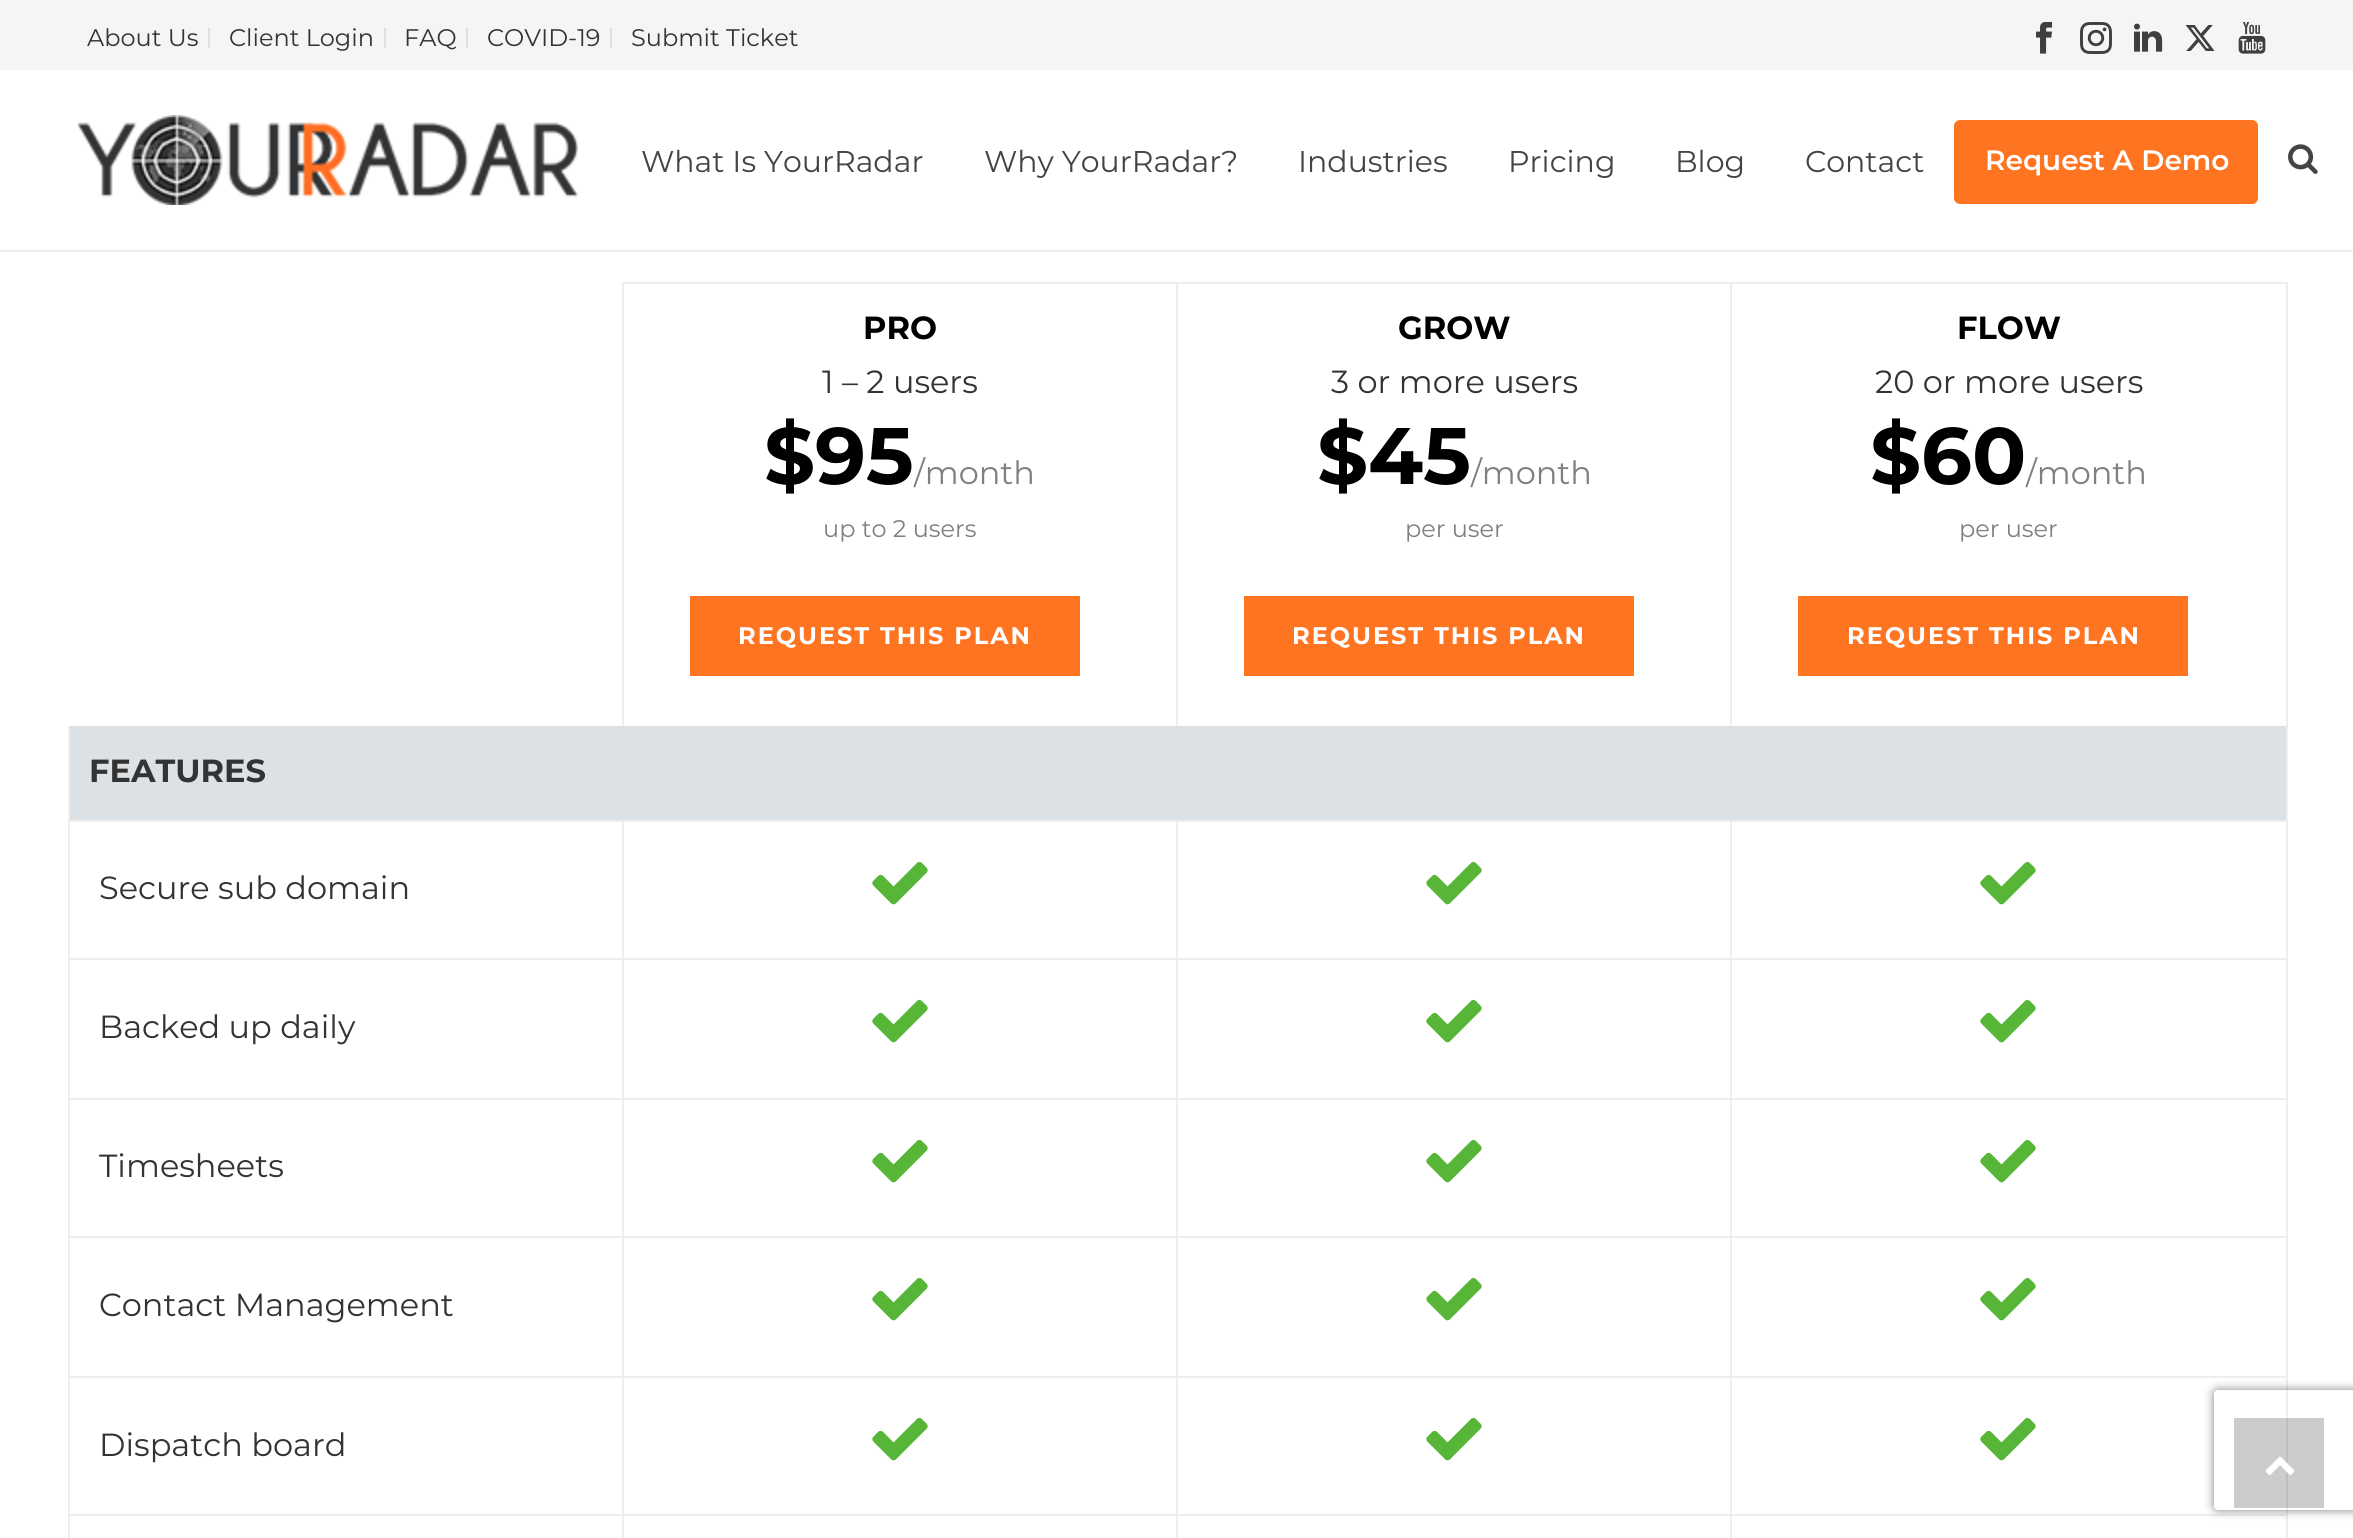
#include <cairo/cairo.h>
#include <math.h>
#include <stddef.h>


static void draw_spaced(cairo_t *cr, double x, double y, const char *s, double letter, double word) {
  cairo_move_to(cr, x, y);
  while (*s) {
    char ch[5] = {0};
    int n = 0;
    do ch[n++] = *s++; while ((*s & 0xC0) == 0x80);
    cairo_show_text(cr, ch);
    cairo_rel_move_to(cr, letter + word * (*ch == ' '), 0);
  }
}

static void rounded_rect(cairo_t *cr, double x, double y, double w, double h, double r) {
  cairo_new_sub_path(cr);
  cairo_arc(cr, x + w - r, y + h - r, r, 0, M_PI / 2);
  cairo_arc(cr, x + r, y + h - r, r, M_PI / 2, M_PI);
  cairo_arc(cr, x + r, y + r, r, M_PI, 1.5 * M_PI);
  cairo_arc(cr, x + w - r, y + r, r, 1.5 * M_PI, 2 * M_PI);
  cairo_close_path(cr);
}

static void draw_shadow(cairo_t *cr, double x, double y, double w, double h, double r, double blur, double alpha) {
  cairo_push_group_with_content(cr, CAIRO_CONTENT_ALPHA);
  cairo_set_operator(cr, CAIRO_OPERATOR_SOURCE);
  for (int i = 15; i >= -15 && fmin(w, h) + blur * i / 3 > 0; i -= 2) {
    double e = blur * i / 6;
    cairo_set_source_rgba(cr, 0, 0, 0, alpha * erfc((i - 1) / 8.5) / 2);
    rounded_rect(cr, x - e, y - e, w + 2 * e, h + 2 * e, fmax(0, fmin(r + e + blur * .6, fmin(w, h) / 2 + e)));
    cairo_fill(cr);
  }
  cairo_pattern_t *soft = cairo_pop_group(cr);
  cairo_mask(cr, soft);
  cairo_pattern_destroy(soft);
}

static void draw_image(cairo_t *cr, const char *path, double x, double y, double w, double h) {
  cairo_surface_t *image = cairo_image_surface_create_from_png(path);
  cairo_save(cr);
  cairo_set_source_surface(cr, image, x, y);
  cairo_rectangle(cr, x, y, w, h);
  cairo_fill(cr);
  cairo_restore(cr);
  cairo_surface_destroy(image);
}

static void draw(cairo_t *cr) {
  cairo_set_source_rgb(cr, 1, 1, 1);
  cairo_paint(cr);
  cairo_set_source_rgb(cr, 204 / 255.0, 204 / 255.0, 204 / 255.0);
  cairo_rectangle(cr, 2234, 1418, 90, 90);
  cairo_fill(cr);
  cairo_set_source_rgb(cr, 245 / 255.0, 245 / 255.0, 245 / 255.0);
  cairo_rectangle(cr, 0, 0, 2353, 70);
  cairo_fill(cr);
  cairo_set_source_rgb(cr, 222 / 255.0, 222 / 255.0, 222 / 255.0);
  cairo_rectangle(cr, 208, 28, 2, 20);
  cairo_fill(cr);
  cairo_rectangle(cr, 384, 28, 2, 20);
  cairo_fill(cr);
  cairo_rectangle(cr, 466, 28, 2, 20);
  cairo_fill(cr);
  cairo_rectangle(cr, 610, 28, 2, 20);
  cairo_fill(cr);
  draw_image(cr, "images/1.png", 2036, 22, 17, 32);
  draw_image(cr, "images/2.png", 2080, 22, 32, 32);
  draw_image(cr, "images/3.png", 2134, 23, 29, 29);
  draw_image(cr, "images/4.png", 2185, 25, 30, 26);
  draw_image(cr, "images/5.png", 2238, 22, 28, 32);
  cairo_set_source_rgb(cr, 237 / 255.0, 237 / 255.0, 237 / 255.0);
  cairo_rectangle(cr, 0, 250, 2353, 2);
  cairo_fill(cr);
  draw_image(cr, "images/6.png", 78, 115, 500, 90);
  cairo_set_source_rgb(cr, 1, 116 / 255.0, 33 / 255.0);
  rounded_rect(cr, 1954, 120, 304, 84, 6);
  cairo_fill(cr);
  draw_image(cr, "images/7.png", 2288, 144, 30, 30);
  cairo_set_source_rgb(cr, 238 / 255.0, 238 / 255.0, 238 / 255.0);
  cairo_rectangle(cr, 2286, 282, 2, 1256);
  cairo_fill(cr);
  cairo_set_source_rgb(cr, 190 / 255.0, 190 / 255.0, 190 / 255.0);
  cairo_rectangle(cr, 2286, 1418, 2, 90);
  cairo_fill(cr);
  cairo_set_source_rgb(cr, 238 / 255.0, 238 / 255.0, 238 / 255.0);
  cairo_rectangle(cr, 622, 282, 1664, 2);
  cairo_fill(cr);
  cairo_rectangle(cr, 622, 282, 2, 444);
  cairo_fill(cr);
  cairo_set_source_rgb(cr, 1, 116 / 255.0, 33 / 255.0);
  cairo_rectangle(cr, 690, 596, 390, 80);
  cairo_fill(cr);
  cairo_set_source_rgb(cr, 238 / 255.0, 238 / 255.0, 238 / 255.0);
  cairo_rectangle(cr, 1176, 282, 2, 444);
  cairo_fill(cr);
  cairo_set_source_rgb(cr, 1, 116 / 255.0, 33 / 255.0);
  cairo_rectangle(cr, 1244, 596, 390, 80);
  cairo_fill(cr);
  cairo_set_source_rgb(cr, 238 / 255.0, 238 / 255.0, 238 / 255.0);
  cairo_rectangle(cr, 1730, 282, 2, 444);
  cairo_fill(cr);
  cairo_set_source_rgb(cr, 1, 116 / 255.0, 33 / 255.0);
  cairo_rectangle(cr, 1798, 596, 390, 80);
  cairo_fill(cr);
  cairo_set_source_rgb(cr, 220 / 255.0, 225 / 255.0, 229 / 255.0);
  cairo_rectangle(cr, 70, 726, 2216, 94);
  cairo_fill(cr);
  cairo_set_source_rgb(cr, 238 / 255.0, 238 / 255.0, 238 / 255.0);
  cairo_rectangle(cr, 68, 820, 2218, 2);
  cairo_fill(cr);
  cairo_rectangle(cr, 68, 726, 2, 96);
  cairo_fill(cr);
  cairo_rectangle(cr, 68, 958, 2218, 2);
  cairo_fill(cr);
  cairo_rectangle(cr, 68, 822, 2, 138);
  cairo_fill(cr);
  cairo_rectangle(cr, 622, 822, 2, 138);
  cairo_fill(cr);
  draw_image(cr, "images/8.png", 872, 861, 56, 44);
  cairo_rectangle(cr, 1176, 822, 2, 138);
  cairo_fill(cr);
  draw_image(cr, "images/8.png", 1426, 861, 56, 44);
  cairo_rectangle(cr, 1730, 822, 2, 138);
  cairo_fill(cr);
  draw_image(cr, "images/8.png", 1980, 861, 56, 44);
  cairo_rectangle(cr, 68, 1098, 2218, 2);
  cairo_fill(cr);
  cairo_rectangle(cr, 68, 960, 2, 140);
  cairo_fill(cr);
  cairo_rectangle(cr, 622, 960, 2, 140);
  cairo_fill(cr);
  draw_image(cr, "images/8.png", 872, 999, 56, 44);
  cairo_rectangle(cr, 1176, 960, 2, 140);
  cairo_fill(cr);
  draw_image(cr, "images/8.png", 1426, 999, 56, 44);
  cairo_rectangle(cr, 1730, 960, 2, 140);
  cairo_fill(cr);
  draw_image(cr, "images/8.png", 1980, 999, 56, 44);
  cairo_rectangle(cr, 68, 1236, 2218, 2);
  cairo_fill(cr);
  cairo_rectangle(cr, 68, 1100, 2, 138);
  cairo_fill(cr);
  cairo_rectangle(cr, 622, 1100, 2, 138);
  cairo_fill(cr);
  draw_image(cr, "images/8.png", 872, 1139, 56, 44);
  cairo_rectangle(cr, 1176, 1100, 2, 138);
  cairo_fill(cr);
  draw_image(cr, "images/8.png", 1426, 1139, 56, 44);
  cairo_rectangle(cr, 1730, 1100, 2, 138);
  cairo_fill(cr);
  draw_image(cr, "images/8.png", 1980, 1139, 56, 44);
  cairo_rectangle(cr, 68, 1376, 2218, 2);
  cairo_fill(cr);
  cairo_rectangle(cr, 68, 1238, 2, 140);
  cairo_fill(cr);
  cairo_rectangle(cr, 622, 1238, 2, 140);
  cairo_fill(cr);
  draw_image(cr, "images/8.png", 872, 1277, 56, 44);
  cairo_rectangle(cr, 1176, 1238, 2, 140);
  cairo_fill(cr);
  draw_image(cr, "images/8.png", 1426, 1277, 56, 44);
  cairo_rectangle(cr, 1730, 1238, 2, 140);
  cairo_fill(cr);
  draw_image(cr, "images/8.png", 1980, 1277, 56, 44);
  cairo_rectangle(cr, 68, 1514, 2218, 2);
  cairo_fill(cr);
  cairo_rectangle(cr, 68, 1378, 2, 160);
  cairo_fill(cr);
  cairo_rectangle(cr, 622, 1378, 2, 160);
  cairo_fill(cr);
  draw_image(cr, "images/8.png", 872, 1417, 56, 44);
  cairo_rectangle(cr, 1176, 1378, 2, 160);
  cairo_fill(cr);
  draw_image(cr, "images/8.png", 1426, 1417, 56, 44);
  cairo_rectangle(cr, 1730, 1378, 2, 160);
  cairo_fill(cr);
  draw_image(cr, "images/8.png", 1980, 1417, 56, 44);
  cairo_save(cr);
  cairo_set_fill_rule(cr, CAIRO_FILL_RULE_EVEN_ODD);
  cairo_new_path(cr);
  cairo_move_to(cr, 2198, 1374);
  cairo_line_to(cr, 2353, 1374);
  cairo_line_to(cr, 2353, 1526);
  cairo_line_to(cr, 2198, 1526);
  cairo_close_path(cr);
  cairo_move_to(cr, 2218, 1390);
  cairo_line_to(cr, 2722, 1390);
  cairo_curve_to(cr, 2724, 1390, 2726, 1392, 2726, 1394);
  cairo_line_to(cr, 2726, 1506);
  cairo_curve_to(cr, 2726, 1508, 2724, 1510, 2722, 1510);
  cairo_line_to(cr, 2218, 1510);
  cairo_curve_to(cr, 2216, 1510, 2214, 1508, 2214, 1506);
  cairo_line_to(cr, 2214, 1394);
  cairo_curve_to(cr, 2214, 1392, 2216, 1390, 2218, 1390);
  cairo_close_path(cr);
  cairo_clip(cr);
  cairo_set_source_rgb(cr, 128 / 255.0, 128 / 255.0, 128 / 255.0);
  draw_shadow(cr, 2214, 1390, 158, 120, 4, 5, 1);
  cairo_restore(cr);
  draw_image(cr, "images/9.png", 2265, 1456, 30, 19);
  cairo_select_font_face(cr, "Montserrat", CAIRO_FONT_SLANT_NORMAL, CAIRO_FONT_WEIGHT_NORMAL);
  cairo_set_font_size(cr, 24);
  cairo_set_source_rgb(cr, 51 / 255.0, 51 / 255.0, 51 / 255.0);
  cairo_move_to(cr, 87, 46);
  cairo_show_text(cr, "About Us");
  cairo_move_to(cr, 229, 46);
  cairo_show_text(cr, "Client Login");
  cairo_move_to(cr, 404, 46);
  cairo_show_text(cr, "FAQ");
  cairo_move_to(cr, 487, 46);
  cairo_show_text(cr, "COVID-19");
  cairo_move_to(cr, 631, 46);
  cairo_show_text(cr, "Submit Ticket");
  cairo_set_font_size(cr, 30);
  cairo_set_source_rgb(cr, 68 / 255.0, 68 / 255.0, 68 / 255.0);
  cairo_move_to(cr, 641, 172);
  cairo_show_text(cr, "What Is YourRadar");
  cairo_move_to(cr, 984, 172);
  cairo_show_text(cr, "Why YourRadar?");
  cairo_move_to(cr, 1298, 172);
  cairo_show_text(cr, "Industries");
  cairo_move_to(cr, 1508, 172);
  cairo_show_text(cr, "Pricing");
  cairo_move_to(cr, 1675, 172);
  cairo_show_text(cr, "Blog");
  cairo_move_to(cr, 1805, 172);
  cairo_show_text(cr, "Contact");
  cairo_select_font_face(cr, "Montserrat SemiBold", CAIRO_FONT_SLANT_NORMAL, CAIRO_FONT_WEIGHT_NORMAL);
  cairo_set_font_size(cr, 28);
  cairo_set_source_rgb(cr, 1, 1, 1);
  cairo_move_to(cr, 1985, 170);
  cairo_show_text(cr, "Request A Demo");
  cairo_select_font_face(cr, "Montserrat", CAIRO_FONT_SLANT_NORMAL, CAIRO_FONT_WEIGHT_BOLD);
  cairo_set_font_size(cr, 32);
  cairo_set_source_rgb(cr, 0, 0, 0);
  cairo_move_to(cr, 863, 339);
  cairo_show_text(cr, "PRO");
  cairo_select_font_face(cr, "Montserrat", CAIRO_FONT_SLANT_NORMAL, CAIRO_FONT_WEIGHT_NORMAL);
  cairo_set_source_rgb(cr, 51 / 255.0, 51 / 255.0, 51 / 255.0);
  cairo_move_to(cr, 822, 393);
  cairo_show_text(cr, "1 – 2 users");
  cairo_select_font_face(cr, "Montserrat", CAIRO_FONT_SLANT_NORMAL, CAIRO_FONT_WEIGHT_BOLD);
  cairo_set_font_size(cr, 80);
  cairo_set_source_rgb(cr, 0, 0, 0);
  cairo_move_to(cr, 764, 484);
  cairo_show_text(cr, "$95");
  cairo_select_font_face(cr, "Montserrat", CAIRO_FONT_SLANT_NORMAL, CAIRO_FONT_WEIGHT_NORMAL);
  cairo_set_font_size(cr, 32);
  cairo_set_source_rgb(cr, 128 / 255.0, 128 / 255.0, 128 / 255.0);
  cairo_move_to(cr, 914, 484);
  cairo_show_text(cr, "/month");
  cairo_set_font_size(cr, 24);
  cairo_move_to(cr, 823, 537);
  cairo_show_text(cr, "up to 2 users");
  cairo_select_font_face(cr, "Montserrat", CAIRO_FONT_SLANT_NORMAL, CAIRO_FONT_WEIGHT_BOLD);
  cairo_set_source_rgb(cr, 1, 1, 1);
  draw_spaced(cr, 738, 644, "REQUEST THIS PLAN", 2, 0);
  cairo_set_font_size(cr, 32);
  cairo_set_source_rgb(cr, 0, 0, 0);
  cairo_move_to(cr, 1398, 339);
  cairo_show_text(cr, "GROW");
  cairo_select_font_face(cr, "Montserrat", CAIRO_FONT_SLANT_NORMAL, CAIRO_FONT_WEIGHT_NORMAL);
  cairo_set_source_rgb(cr, 51 / 255.0, 51 / 255.0, 51 / 255.0);
  cairo_move_to(cr, 1331, 393);
  cairo_show_text(cr, "3 or more users");
  cairo_select_font_face(cr, "Montserrat", CAIRO_FONT_SLANT_NORMAL, CAIRO_FONT_WEIGHT_BOLD);
  cairo_set_font_size(cr, 80);
  cairo_set_source_rgb(cr, 0, 0, 0);
  cairo_move_to(cr, 1317, 484);
  cairo_show_text(cr, "$45");
  cairo_select_font_face(cr, "Montserrat", CAIRO_FONT_SLANT_NORMAL, CAIRO_FONT_WEIGHT_NORMAL);
  cairo_set_font_size(cr, 32);
  cairo_set_source_rgb(cr, 128 / 255.0, 128 / 255.0, 128 / 255.0);
  cairo_move_to(cr, 1471, 484);
  cairo_show_text(cr, "/month");
  cairo_set_font_size(cr, 24);
  cairo_move_to(cr, 1405, 537);
  cairo_show_text(cr, "per user");
  cairo_select_font_face(cr, "Montserrat", CAIRO_FONT_SLANT_NORMAL, CAIRO_FONT_WEIGHT_BOLD);
  cairo_set_source_rgb(cr, 1, 1, 1);
  draw_spaced(cr, 1292, 644, "REQUEST THIS PLAN", 2, 0);
  cairo_set_font_size(cr, 32);
  cairo_set_source_rgb(cr, 0, 0, 0);
  cairo_move_to(cr, 1957, 339);
  cairo_show_text(cr, "FLOW");
  cairo_select_font_face(cr, "Montserrat", CAIRO_FONT_SLANT_NORMAL, CAIRO_FONT_WEIGHT_NORMAL);
  cairo_set_source_rgb(cr, 51 / 255.0, 51 / 255.0, 51 / 255.0);
  cairo_move_to(cr, 1875, 393);
  cairo_show_text(cr, "20 or more users");
  cairo_select_font_face(cr, "Montserrat", CAIRO_FONT_SLANT_NORMAL, CAIRO_FONT_WEIGHT_BOLD);
  cairo_set_font_size(cr, 80);
  cairo_set_source_rgb(cr, 0, 0, 0);
  cairo_move_to(cr, 1870, 484);
  cairo_show_text(cr, "$60");
  cairo_select_font_face(cr, "Montserrat", CAIRO_FONT_SLANT_NORMAL, CAIRO_FONT_WEIGHT_NORMAL);
  cairo_set_font_size(cr, 32);
  cairo_set_source_rgb(cr, 128 / 255.0, 128 / 255.0, 128 / 255.0);
  cairo_move_to(cr, 2026, 484);
  cairo_show_text(cr, "/month");
  cairo_set_font_size(cr, 24);
  cairo_move_to(cr, 1959, 537);
  cairo_show_text(cr, "per user");
  cairo_select_font_face(cr, "Montserrat", CAIRO_FONT_SLANT_NORMAL, CAIRO_FONT_WEIGHT_BOLD);
  cairo_set_source_rgb(cr, 1, 1, 1);
  draw_spaced(cr, 1847, 644, "REQUEST THIS PLAN", 2, 0);
  cairo_set_font_size(cr, 32);
  cairo_set_source_rgb(cr, 51 / 255.0, 51 / 255.0, 51 / 255.0);
  cairo_move_to(cr, 89, 782);
  cairo_show_text(cr, "FEATURES");
  cairo_select_font_face(cr, "Montserrat", CAIRO_FONT_SLANT_NORMAL, CAIRO_FONT_WEIGHT_NORMAL);
  cairo_move_to(cr, 99, 899);
  cairo_show_text(cr, "Secure sub domain");
  cairo_move_to(cr, 99, 1038);
  cairo_show_text(cr, "Backed up daily");
  cairo_move_to(cr, 99, 1177);
  cairo_show_text(cr, "Timesheets");
  cairo_move_to(cr, 99, 1316);
  cairo_show_text(cr, "Contact Management");
  cairo_move_to(cr, 99, 1456);
  cairo_show_text(cr, "Dispatch board");
}

int main(void) {
  cairo_surface_t *surface = cairo_image_surface_create(CAIRO_FORMAT_RGB24, 2353, 1538);
  cairo_t *cr = cairo_create(surface);
  cairo_font_options_t *options = cairo_font_options_create();
  cairo_font_options_set_hint_metrics(options, CAIRO_HINT_METRICS_OFF);
  cairo_font_options_set_hint_style(options, CAIRO_HINT_STYLE_NONE);
  cairo_set_font_options(cr, options);
  cairo_set_miter_limit(cr, 4);
  draw(cr);
  cairo_surface_write_to_png(surface, "out.png");
  cairo_font_options_destroy(options);
  cairo_destroy(cr);
  cairo_surface_destroy(surface);
  return 0;
}
